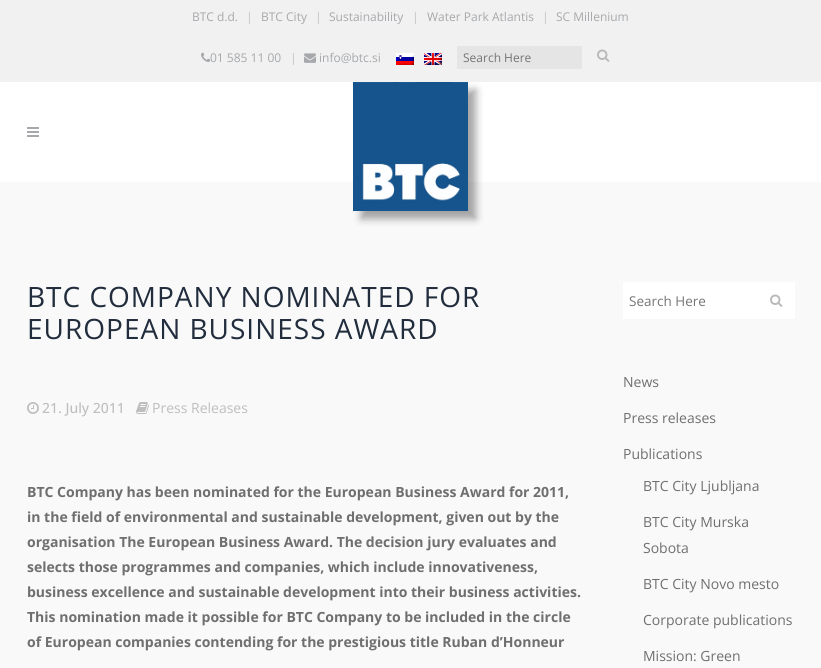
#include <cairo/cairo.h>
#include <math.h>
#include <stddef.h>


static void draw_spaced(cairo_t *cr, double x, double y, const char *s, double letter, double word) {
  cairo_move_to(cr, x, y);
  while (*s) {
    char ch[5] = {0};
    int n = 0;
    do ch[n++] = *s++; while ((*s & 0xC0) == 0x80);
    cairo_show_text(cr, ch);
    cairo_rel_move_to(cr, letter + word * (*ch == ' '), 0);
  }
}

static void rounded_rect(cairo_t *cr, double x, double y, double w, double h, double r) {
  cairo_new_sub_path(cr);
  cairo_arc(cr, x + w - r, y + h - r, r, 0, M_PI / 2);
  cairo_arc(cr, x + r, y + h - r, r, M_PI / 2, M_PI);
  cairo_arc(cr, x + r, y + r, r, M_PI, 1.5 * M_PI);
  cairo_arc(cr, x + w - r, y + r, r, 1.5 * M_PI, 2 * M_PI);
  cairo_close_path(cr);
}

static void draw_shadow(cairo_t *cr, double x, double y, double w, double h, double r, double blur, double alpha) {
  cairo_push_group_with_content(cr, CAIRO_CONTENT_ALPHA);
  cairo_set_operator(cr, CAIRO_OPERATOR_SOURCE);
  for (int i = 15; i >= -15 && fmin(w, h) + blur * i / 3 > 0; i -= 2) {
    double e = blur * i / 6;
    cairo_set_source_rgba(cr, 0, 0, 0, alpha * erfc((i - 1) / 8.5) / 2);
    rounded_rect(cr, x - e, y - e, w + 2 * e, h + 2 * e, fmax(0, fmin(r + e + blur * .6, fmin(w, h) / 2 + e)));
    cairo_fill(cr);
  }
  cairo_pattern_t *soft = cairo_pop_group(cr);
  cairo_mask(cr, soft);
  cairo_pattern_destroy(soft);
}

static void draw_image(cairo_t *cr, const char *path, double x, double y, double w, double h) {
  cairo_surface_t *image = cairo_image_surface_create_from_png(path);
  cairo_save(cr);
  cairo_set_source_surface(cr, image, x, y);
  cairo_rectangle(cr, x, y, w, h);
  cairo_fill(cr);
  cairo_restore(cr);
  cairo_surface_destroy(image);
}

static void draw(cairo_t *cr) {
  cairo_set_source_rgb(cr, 249 / 255.0, 249 / 255.0, 249 / 255.0);
  cairo_paint(cr);
  cairo_set_source_rgb(cr, 1, 1, 1);
  cairo_rectangle(cr, 0, 82, 821, 100);
  cairo_fill(cr);
  cairo_set_source_rgb(cr, 0, 0, 0);
  draw_shadow(cr, 361, 90, 115, 129, 0, 4, 0.35);
  cairo_set_source_rgb(cr, 241 / 255.0, 241 / 255.0, 241 / 255.0);
  cairo_rectangle(cr, 0, 0, 821, 82);
  cairo_fill(cr);
  draw_image(cr, "images/1.png", 201, 52, 10, 10);
  draw_image(cr, "images/2.png", 304, 53, 12, 10);
  draw_image(cr, "images/3.png", 396, 53, 18, 12);
  draw_image(cr, "images/4.png", 424, 53, 18, 12);
  cairo_set_source_rgb(cr, 229 / 255.0, 229 / 255.0, 229 / 255.0);
  cairo_rectangle(cr, 457, 46, 125, 23);
  cairo_fill(cr);
  draw_image(cr, "images/5.png", 597, 49, 13, 13);
  draw_image(cr, "images/6.png", 27, 127, 12, 10);
  draw_image(cr, "images/7.png", 353, 82, 115, 129);
  draw_image(cr, "images/8.png", 27, 402, 12, 12);
  draw_image(cr, "images/9.png", 136, 402, 13, 12);
  cairo_set_source_rgb(cr, 1, 1, 1);
  cairo_rectangle(cr, 623, 282, 172, 37);
  cairo_fill(cr);
  draw_image(cr, "images/10.png", 770, 294, 13, 13);
  cairo_select_font_face(cr, "Open Sans", CAIRO_FONT_SLANT_NORMAL, CAIRO_FONT_WEIGHT_NORMAL);
  cairo_set_font_size(cr, 12);
  cairo_set_source_rgb(cr, 166 / 255.0, 168 / 255.0, 171 / 255.0);
  cairo_move_to(cr, 192, 21);
  cairo_show_text(cr, "BTC d.d.");
  cairo_select_font_face(cr, "Open Sans Light", CAIRO_FONT_SLANT_NORMAL, CAIRO_FONT_WEIGHT_NORMAL);
  cairo_move_to(cr, 246, 21);
  cairo_show_text(cr, "|");
  cairo_select_font_face(cr, "Open Sans", CAIRO_FONT_SLANT_NORMAL, CAIRO_FONT_WEIGHT_NORMAL);
  cairo_move_to(cr, 261, 21);
  cairo_show_text(cr, "BTC City");
  cairo_select_font_face(cr, "Open Sans Light", CAIRO_FONT_SLANT_NORMAL, CAIRO_FONT_WEIGHT_NORMAL);
  cairo_move_to(cr, 315, 21);
  cairo_show_text(cr, "|");
  cairo_select_font_face(cr, "Open Sans", CAIRO_FONT_SLANT_NORMAL, CAIRO_FONT_WEIGHT_NORMAL);
  cairo_move_to(cr, 329, 21);
  cairo_show_text(cr, "Sustainability");
  cairo_select_font_face(cr, "Open Sans Light", CAIRO_FONT_SLANT_NORMAL, CAIRO_FONT_WEIGHT_NORMAL);
  cairo_move_to(cr, 412, 21);
  cairo_show_text(cr, "|");
  cairo_select_font_face(cr, "Open Sans", CAIRO_FONT_SLANT_NORMAL, CAIRO_FONT_WEIGHT_NORMAL);
  cairo_move_to(cr, 427, 21);
  cairo_show_text(cr, "Water Park Atlantis");
  cairo_select_font_face(cr, "Open Sans Light", CAIRO_FONT_SLANT_NORMAL, CAIRO_FONT_WEIGHT_NORMAL);
  cairo_move_to(cr, 542, 21);
  cairo_show_text(cr, "|");
  cairo_select_font_face(cr, "Open Sans", CAIRO_FONT_SLANT_NORMAL, CAIRO_FONT_WEIGHT_NORMAL);
  cairo_move_to(cr, 556, 21);
  cairo_show_text(cr, "SC Millenium");
  cairo_move_to(cr, 210, 62);
  cairo_show_text(cr, "01 585 11 00");
  cairo_select_font_face(cr, "Open Sans Light", CAIRO_FONT_SLANT_NORMAL, CAIRO_FONT_WEIGHT_NORMAL);
  cairo_move_to(cr, 290, 62);
  cairo_show_text(cr, "|");
  cairo_select_font_face(cr, "Open Sans", CAIRO_FONT_SLANT_NORMAL, CAIRO_FONT_WEIGHT_NORMAL);
  cairo_move_to(cr, 319, 62);
  cairo_show_text(cr, "info@btc.si");
  cairo_set_source_rgb(cr, 117 / 255.0, 117 / 255.0, 117 / 255.0);
  cairo_move_to(cr, 463, 62);
  cairo_show_text(cr, "Search Here");
  cairo_set_font_size(cr, 28);
  cairo_set_source_rgb(cr, 33 / 255.0, 45 / 255.0, 61 / 255.0);
  draw_spaced(cr, 27, 307, "BTC COMPANY NOMINATED FOR", 1, 0);
  draw_spaced(cr, 27, 339, "EUROPEAN BUSINESS AWARD", 1, 0);
  cairo_select_font_face(cr, "Open Sans Medium", CAIRO_FONT_SLANT_NORMAL, CAIRO_FONT_WEIGHT_NORMAL);
  cairo_set_font_size(cr, 14);
  cairo_set_source_rgb(cr, 190 / 255.0, 190 / 255.0, 190 / 255.0);
  cairo_move_to(cr, 42, 413);
  cairo_show_text(cr, "21. July 2011");
  cairo_select_font_face(cr, "Open Sans", CAIRO_FONT_SLANT_NORMAL, CAIRO_FONT_WEIGHT_NORMAL);
  cairo_move_to(cr, 152, 413);
  cairo_show_text(cr, "Press Releases");
  cairo_select_font_face(cr, "Open Sans", CAIRO_FONT_SLANT_NORMAL, CAIRO_FONT_WEIGHT_BOLD);
  cairo_set_source_rgb(cr, 112 / 255.0, 111 / 255.0, 111 / 255.0);
  cairo_move_to(cr, 27, 497);
  cairo_show_text(cr, "BTC Company has been nominated for the European Business Award for 2011,");
  cairo_move_to(cr, 27, 522);
  cairo_show_text(cr, "in the field of environmental and sustainable development, given out by the");
  cairo_move_to(cr, 27, 547);
  cairo_show_text(cr, "organisation The European Business Award. The decision jury evaluates and");
  cairo_move_to(cr, 27, 572);
  cairo_show_text(cr, "selects those programmes and companies, which include innovativeness,");
  cairo_move_to(cr, 27, 597);
  cairo_show_text(cr, "business excellence and sustainable development into their business activities.");
  cairo_move_to(cr, 27, 622);
  cairo_show_text(cr, "This nomination made it possible for BTC Company to be included in the circle");
  cairo_move_to(cr, 27, 647);
  cairo_show_text(cr, "of European companies contending for the prestigious title Ruban d’Honneur");
  cairo_select_font_face(cr, "Open Sans", CAIRO_FONT_SLANT_NORMAL, CAIRO_FONT_WEIGHT_NORMAL);
  cairo_set_font_size(cr, 13.5);
  cairo_set_source_rgb(cr, 117 / 255.0, 117 / 255.0, 117 / 255.0);
  cairo_move_to(cr, 629, 306);
  cairo_show_text(cr, "Search Here");
  cairo_set_font_size(cr, 14);
  cairo_set_source_rgb(cr, 112 / 255.0, 111 / 255.0, 111 / 255.0);
  cairo_move_to(cr, 623, 387);
  cairo_show_text(cr, "News");
  cairo_move_to(cr, 623, 423);
  cairo_show_text(cr, "Press releases");
  cairo_move_to(cr, 623, 459);
  cairo_show_text(cr, "Publications");
  cairo_move_to(cr, 643, 491);
  cairo_show_text(cr, "BTC City Ljubljana");
  cairo_move_to(cr, 643, 527);
  cairo_show_text(cr, "BTC City Murska");
  cairo_move_to(cr, 643, 553);
  cairo_show_text(cr, "Sobota");
  cairo_move_to(cr, 643, 589);
  cairo_show_text(cr, "BTC City Novo mesto");
  cairo_move_to(cr, 643, 625);
  cairo_show_text(cr, "Corporate publications");
  cairo_move_to(cr, 643, 661);
  cairo_show_text(cr, "Mission: Green");
}

int main(void) {
  cairo_surface_t *surface = cairo_image_surface_create(CAIRO_FORMAT_RGB24, 821, 668);
  cairo_t *cr = cairo_create(surface);
  cairo_font_options_t *options = cairo_font_options_create();
  cairo_font_options_set_hint_metrics(options, CAIRO_HINT_METRICS_OFF);
  cairo_font_options_set_hint_style(options, CAIRO_HINT_STYLE_NONE);
  cairo_set_font_options(cr, options);
  cairo_set_miter_limit(cr, 4);
  draw(cr);
  cairo_surface_write_to_png(surface, "out.png");
  cairo_font_options_destroy(options);
  cairo_destroy(cr);
  cairo_surface_destroy(surface);
  return 0;
}
